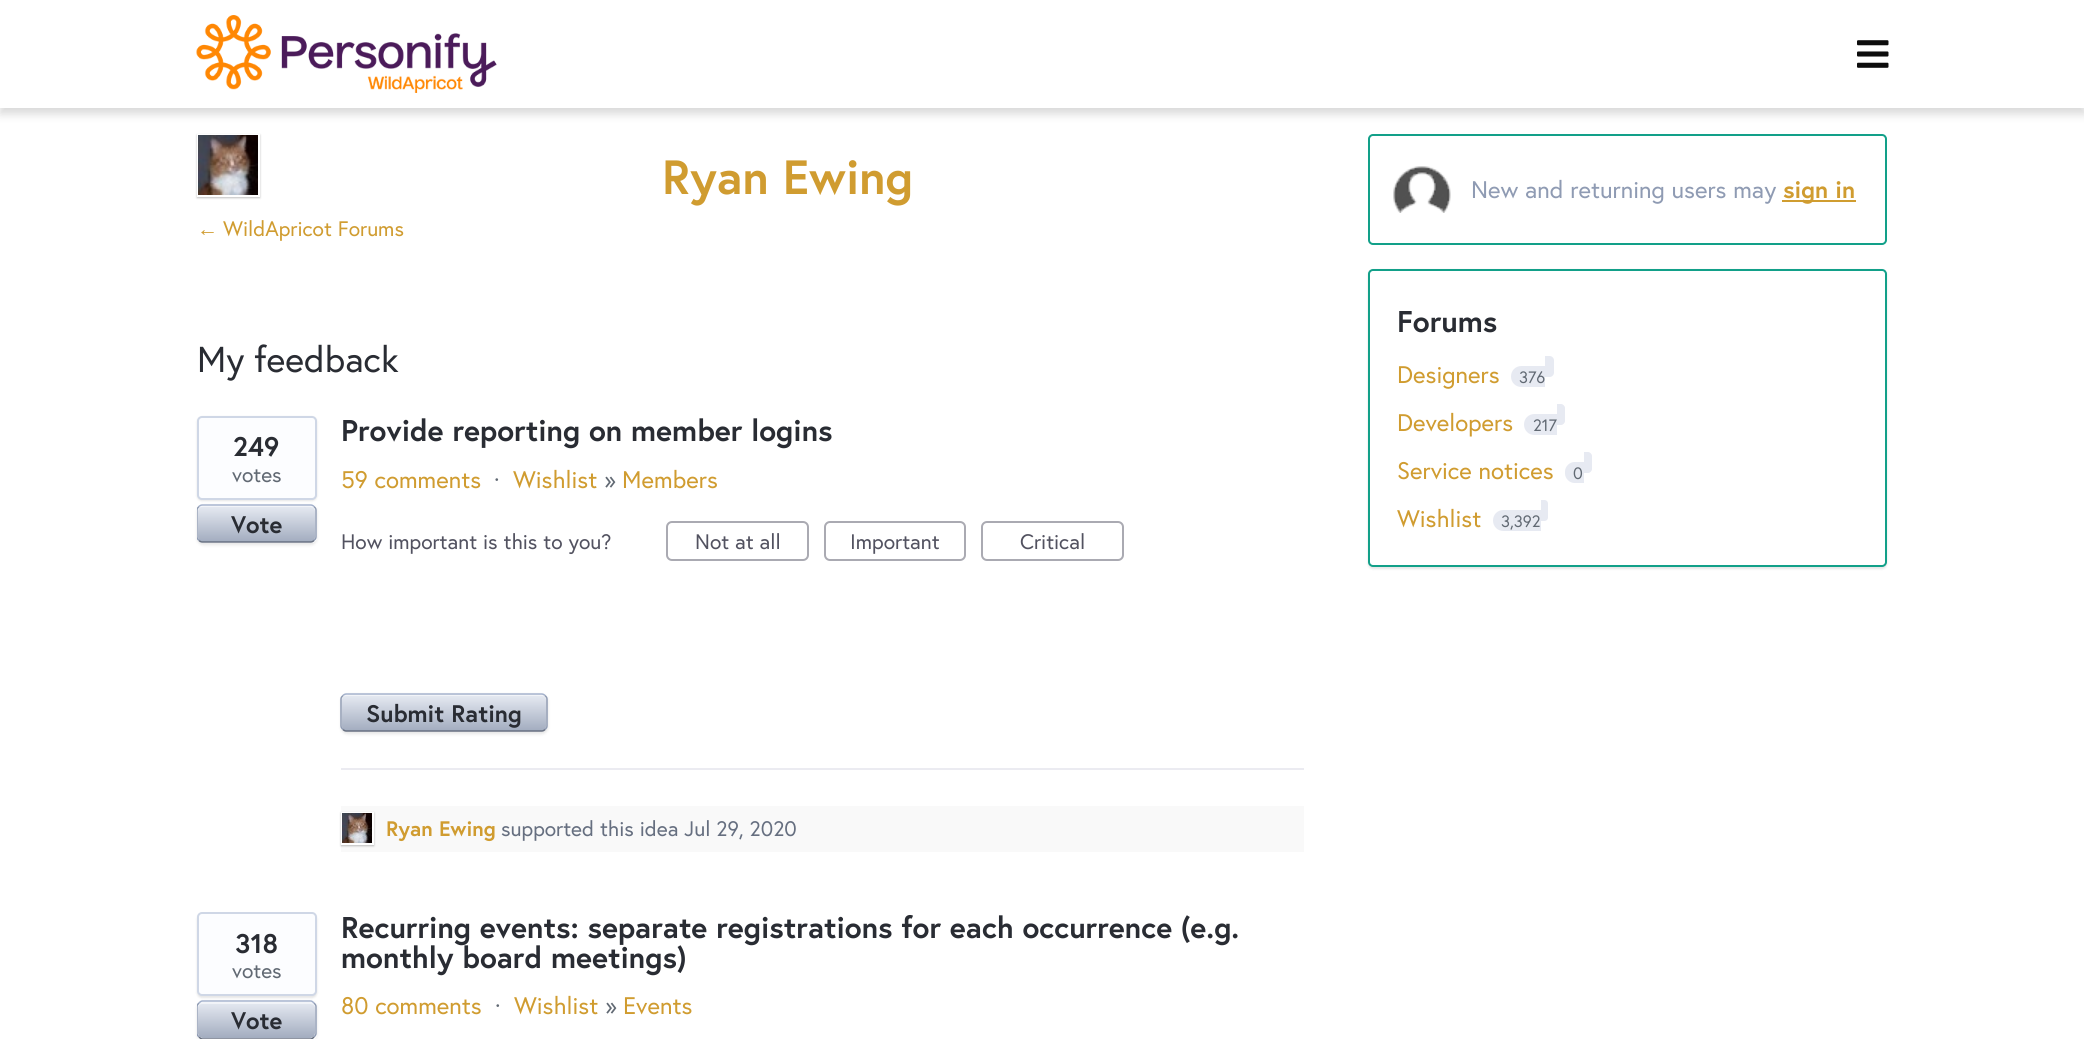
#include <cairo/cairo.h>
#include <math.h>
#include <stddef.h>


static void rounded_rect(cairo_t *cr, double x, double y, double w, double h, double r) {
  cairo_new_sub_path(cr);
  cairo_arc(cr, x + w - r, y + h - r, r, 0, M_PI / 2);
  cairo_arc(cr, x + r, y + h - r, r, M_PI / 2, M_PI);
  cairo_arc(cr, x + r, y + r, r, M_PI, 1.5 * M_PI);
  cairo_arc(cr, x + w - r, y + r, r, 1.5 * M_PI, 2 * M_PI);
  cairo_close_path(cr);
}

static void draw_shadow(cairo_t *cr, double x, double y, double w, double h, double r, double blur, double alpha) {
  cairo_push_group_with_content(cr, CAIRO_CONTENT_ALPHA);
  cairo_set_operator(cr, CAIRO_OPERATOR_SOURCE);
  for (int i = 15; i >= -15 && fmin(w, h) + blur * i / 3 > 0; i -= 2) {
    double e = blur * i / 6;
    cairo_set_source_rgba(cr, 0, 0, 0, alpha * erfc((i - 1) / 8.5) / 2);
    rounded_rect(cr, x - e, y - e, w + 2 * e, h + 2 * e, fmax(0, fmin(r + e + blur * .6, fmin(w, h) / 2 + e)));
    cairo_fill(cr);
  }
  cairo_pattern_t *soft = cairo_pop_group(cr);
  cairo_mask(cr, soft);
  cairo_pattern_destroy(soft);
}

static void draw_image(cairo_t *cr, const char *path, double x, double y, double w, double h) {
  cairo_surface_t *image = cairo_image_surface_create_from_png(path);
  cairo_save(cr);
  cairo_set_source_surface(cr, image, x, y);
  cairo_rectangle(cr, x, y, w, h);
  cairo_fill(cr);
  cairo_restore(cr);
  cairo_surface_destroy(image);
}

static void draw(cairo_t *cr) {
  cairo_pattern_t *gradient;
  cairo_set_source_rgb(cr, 1, 1, 1);
  cairo_paint(cr);
  cairo_save(cr);
  cairo_rectangle(cr, 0, 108, 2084, 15);
  cairo_clip(cr);
  cairo_set_source_rgb(cr, 217 / 255.0, 217 / 255.0, 217 / 255.0);
  draw_shadow(cr, 0, 6, 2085, 108, 0, 4.5, 1);
  cairo_restore(cr);
  draw_image(cr, "images/1.png", 196, 15, 301, 78);
  draw_image(cr, "images/2.png", 1857, 40, 32, 28);
  cairo_set_source_rgb(cr, 0, 0, 0);
  draw_shadow(cr, 197, 135, 63, 63, 0, 1, 0.25);
  cairo_rectangle(cr, 198, 135, 61, 61);
  cairo_set_source_rgb(cr, 1, 1, 1);
  cairo_stroke(cr);
  draw_image(cr, "images/3.png", 198, 135, 60, 60);
  cairo_set_source_rgb(cr, 0, 0, 0);
  draw_shadow(cr, 197, 417, 120, 84, 5, 1, 0.1);
  cairo_set_source_rgb(cr, 252 / 255.0, 253 / 255.0, 1);
  rounded_rect(cr, 198, 417, 118, 82, 4);
  cairo_fill_preserve(cr);
  cairo_set_source_rgb(cr, 207 / 255.0, 215 / 255.0, 230 / 255.0);
  cairo_stroke(cr);
  cairo_save(cr);
  cairo_set_fill_rule(cr, CAIRO_FILL_RULE_EVEN_ODD);
  cairo_new_path(cr);
  cairo_move_to(cr, 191, 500);
  cairo_line_to(cr, 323, 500);
  cairo_line_to(cr, 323, 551);
  cairo_line_to(cr, 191, 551);
  cairo_close_path(cr);
  cairo_move_to(cr, 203, 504);
  cairo_line_to(cr, 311, 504);
  cairo_curve_to(cr, 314.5, 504, 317, 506.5, 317, 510);
  cairo_line_to(cr, 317, 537);
  cairo_curve_to(cr, 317, 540.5, 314.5, 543, 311, 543);
  cairo_line_to(cr, 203, 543);
  cairo_curve_to(cr, 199.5, 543, 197, 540.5, 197, 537);
  cairo_line_to(cr, 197, 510);
  cairo_curve_to(cr, 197, 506.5, 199.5, 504, 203, 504);
  cairo_close_path(cr);
  cairo_clip(cr);
  cairo_set_source_rgb(cr, 0, 0, 0);
  draw_shadow(cr, 197, 506, 120, 39, 6, 1.5, 0.1);
  cairo_restore(cr);
  gradient = cairo_pattern_create_linear(198, 506, 198, 542);
  cairo_pattern_add_color_stop_rgba(gradient, 0, 230 / 255.0, 234 / 255.0, 242 / 255.0, 1);
  cairo_pattern_add_color_stop_rgba(gradient, 1, 162 / 255.0, 172 / 255.0, 191 / 255.0, 1);
  cairo_set_source(cr, gradient);
  cairo_pattern_destroy(gradient);
  rounded_rect(cr, 198, 506, 117, 36, 5);
  cairo_fill(cr);
  cairo_set_source_rgba(cr, 1, 1, 1, 0.5);
  cairo_new_path(cr);
  cairo_move_to(cr, 202, 507);
  cairo_line_to(cr, 310, 507);
  cairo_curve_to(cr, 313, 507, 315, 509, 315, 512);
  cairo_curve_to(cr, 315, 501, 297, 506, 292, 506);
  cairo_line_to(cr, 221, 506);
  cairo_curve_to(cr, 216, 506, 198, 501, 198, 512);
  cairo_curve_to(cr, 198, 509, 200, 507, 202, 507);
  cairo_close_path(cr);
  cairo_fill(cr);
  cairo_new_path(cr);
  cairo_move_to(cr, 199, 506.5);
  cairo_curve_to(cr, 200, 505.5, 201, 505, 202.5, 505);
  cairo_line_to(cr, 310.5, 505);
  cairo_curve_to(cr, 312, 505, 313, 505.5, 314, 506.5);
  cairo_set_source_rgb(cr, 163 / 255.0, 177 / 255.0, 204 / 255.0);
  cairo_set_line_width(cr, 1.5);
  cairo_stroke(cr);
  cairo_new_path(cr);
  cairo_move_to(cr, 314, 506.5);
  cairo_curve_to(cr, 315, 507.5, 316, 508.5, 316, 510);
  cairo_line_to(cr, 316, 537);
  cairo_curve_to(cr, 316, 538.5, 315, 539.5, 314, 540.5);
  cairo_set_source_rgb(cr, 143 / 255.0, 155 / 255.0, 179 / 255.0);
  cairo_stroke(cr);
  cairo_new_path(cr);
  cairo_move_to(cr, 314, 540.5);
  cairo_curve_to(cr, 313, 541.5, 312, 542, 310.5, 542);
  cairo_line_to(cr, 202.5, 542);
  cairo_curve_to(cr, 201, 542, 200, 541.5, 199, 540.5);
  cairo_set_source_rgb(cr, 102 / 255.0, 111 / 255.0, 128 / 255.0);
  cairo_stroke(cr);
  cairo_save(cr);
  cairo_rectangle(cr, 197, 134, 1692, 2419);
  cairo_clip(cr);
  cairo_new_path(cr);
  cairo_move_to(cr, 199, 540.5);
  cairo_curve_to(cr, 198, 539.5, 197, 538.5, 197, 537);
  cairo_line_to(cr, 197, 510);
  cairo_curve_to(cr, 197, 508.5, 198, 507.5, 199, 506.5);
  cairo_set_source_rgb(cr, 143 / 255.0, 155 / 255.0, 179 / 255.0);
  cairo_stroke(cr);
  cairo_restore(cr);
  cairo_set_source_rgb(cr, 235 / 255.0, 235 / 255.0, 241 / 255.0);
  cairo_rectangle(cr, 341, 768, 963, 2);
  cairo_fill(cr);
  rounded_rect(cr, 667, 522, 141, 38, 5);
  cairo_set_source_rgb(cr, 170 / 255.0, 170 / 255.0, 178 / 255.0);
  cairo_set_line_width(cr, 2);
  cairo_stroke(cr);
  rounded_rect(cr, 825, 522, 140, 38, 5);
  cairo_stroke(cr);
  rounded_rect(cr, 982, 522, 141, 38, 5);
  cairo_stroke(cr);
  cairo_set_source_rgb(cr, 0, 0, 0);
  draw_shadow(cr, 341, 695, 207, 39, 6, 1.5, 0.1);
  gradient = cairo_pattern_create_linear(342, 695, 342, 731);
  cairo_pattern_add_color_stop_rgba(gradient, 0, 230 / 255.0, 234 / 255.0, 242 / 255.0, 1);
  cairo_pattern_add_color_stop_rgba(gradient, 1, 162 / 255.0, 172 / 255.0, 191 / 255.0, 1);
  cairo_set_source(cr, gradient);
  cairo_pattern_destroy(gradient);
  rounded_rect(cr, 342, 695, 204, 36, 5);
  cairo_fill(cr);
  cairo_set_source_rgba(cr, 1, 1, 1, 0.5);
  cairo_new_path(cr);
  cairo_move_to(cr, 346, 696);
  cairo_line_to(cr, 542, 696);
  cairo_curve_to(cr, 544, 696, 546, 698, 546, 700);
  cairo_curve_to(cr, 546, 697, 544, 695, 541, 695);
  cairo_line_to(cr, 347, 695);
  cairo_curve_to(cr, 344, 695, 342, 697, 342, 700);
  cairo_curve_to(cr, 342, 698, 344, 696, 346, 696);
  cairo_close_path(cr);
  cairo_fill(cr);
  cairo_new_path(cr);
  cairo_move_to(cr, 343, 695.5);
  cairo_curve_to(cr, 344, 694.5, 345, 694, 346.5, 694);
  cairo_line_to(cr, 541.5, 694);
  cairo_curve_to(cr, 543, 694, 544, 694.5, 545, 695.5);
  cairo_set_source_rgb(cr, 163 / 255.0, 177 / 255.0, 204 / 255.0);
  cairo_set_line_width(cr, 1.5);
  cairo_stroke(cr);
  cairo_new_path(cr);
  cairo_move_to(cr, 545, 695.5);
  cairo_curve_to(cr, 546, 696.5, 547, 697.5, 547, 699);
  cairo_line_to(cr, 547, 726);
  cairo_curve_to(cr, 547, 727.5, 546, 728.5, 545, 729.5);
  cairo_set_source_rgb(cr, 143 / 255.0, 155 / 255.0, 179 / 255.0);
  cairo_stroke(cr);
  cairo_new_path(cr);
  cairo_move_to(cr, 545, 729.5);
  cairo_curve_to(cr, 544, 730.5, 543, 731, 541.5, 731);
  cairo_line_to(cr, 346.5, 731);
  cairo_curve_to(cr, 345, 731, 344, 730.5, 343, 729.5);
  cairo_set_source_rgb(cr, 102 / 255.0, 111 / 255.0, 128 / 255.0);
  cairo_stroke(cr);
  cairo_new_path(cr);
  cairo_move_to(cr, 343, 729.5);
  cairo_curve_to(cr, 342, 728.5, 341, 727.5, 341, 726);
  cairo_line_to(cr, 341, 699);
  cairo_curve_to(cr, 341, 697.5, 342, 696.5, 343, 695.5);
  cairo_set_source_rgb(cr, 143 / 255.0, 155 / 255.0, 179 / 255.0);
  cairo_stroke(cr);
  cairo_set_source_rgb(cr, 249 / 255.0, 249 / 255.0, 249 / 255.0);
  cairo_rectangle(cr, 341, 806, 963, 46);
  cairo_fill(cr);
  cairo_set_source_rgb(cr, 0, 0, 0);
  draw_shadow(cr, 341, 813, 33, 33, 0, 1, 0.25);
  cairo_rectangle(cr, 342, 813, 31, 31);
  cairo_set_source_rgb(cr, 1, 1, 1);
  cairo_set_line_width(cr, 2);
  cairo_stroke(cr);
  draw_image(cr, "images/4.png", 342, 813, 30, 30);
  cairo_set_source_rgb(cr, 0, 0, 0);
  draw_shadow(cr, 197, 914, 120, 84, 5, 1, 0.1);
  cairo_set_source_rgb(cr, 252 / 255.0, 253 / 255.0, 1);
  rounded_rect(cr, 198, 913, 118, 82, 4);
  cairo_fill_preserve(cr);
  cairo_set_source_rgb(cr, 207 / 255.0, 215 / 255.0, 230 / 255.0);
  cairo_stroke(cr);
  cairo_save(cr);
  cairo_set_fill_rule(cr, CAIRO_FILL_RULE_EVEN_ODD);
  cairo_new_path(cr);
  cairo_move_to(cr, 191, 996);
  cairo_line_to(cr, 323, 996);
  cairo_line_to(cr, 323, 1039);
  cairo_line_to(cr, 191, 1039);
  cairo_close_path(cr);
  cairo_move_to(cr, 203, 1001);
  cairo_line_to(cr, 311, 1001);
  cairo_curve_to(cr, 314.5, 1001, 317, 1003.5, 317, 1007);
  cairo_line_to(cr, 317, 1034);
  cairo_curve_to(cr, 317, 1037.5, 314.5, 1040, 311, 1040);
  cairo_line_to(cr, 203, 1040);
  cairo_curve_to(cr, 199.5, 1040, 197, 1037.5, 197, 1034);
  cairo_line_to(cr, 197, 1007);
  cairo_curve_to(cr, 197, 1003.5, 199.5, 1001, 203, 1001);
  cairo_close_path(cr);
  cairo_clip(cr);
  cairo_set_source_rgb(cr, 0, 0, 0);
  draw_shadow(cr, 197, 1002, 120, 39, 6, 1.5, 0.1);
  cairo_restore(cr);
  gradient = cairo_pattern_create_linear(198, 1002, 198, 1038);
  cairo_pattern_add_color_stop_rgba(gradient, 0, 230 / 255.0, 234 / 255.0, 242 / 255.0, 1);
  cairo_pattern_add_color_stop_rgba(gradient, 1, 162 / 255.0, 172 / 255.0, 191 / 255.0, 1);
  cairo_set_source(cr, gradient);
  cairo_pattern_destroy(gradient);
  rounded_rect(cr, 198, 1002, 117, 36, 5);
  cairo_fill(cr);
  cairo_set_source_rgba(cr, 1, 1, 1, 0.5);
  cairo_new_path(cr);
  cairo_move_to(cr, 202, 1004);
  cairo_line_to(cr, 310, 1004);
  cairo_curve_to(cr, 313, 1004, 315, 1006, 315, 1008);
  cairo_curve_to(cr, 315, 997, 297, 1002, 292, 1002);
  cairo_line_to(cr, 221, 1002);
  cairo_curve_to(cr, 216, 1002, 198, 997, 198, 1008);
  cairo_curve_to(cr, 198, 1006, 200, 1004, 202, 1004);
  cairo_close_path(cr);
  cairo_fill(cr);
  cairo_new_path(cr);
  cairo_move_to(cr, 199, 1003);
  cairo_curve_to(cr, 200, 1002, 201, 1001, 202.5, 1001);
  cairo_line_to(cr, 310.5, 1001);
  cairo_curve_to(cr, 312, 1001, 313, 1002, 314, 1003);
  cairo_set_source_rgb(cr, 163 / 255.0, 177 / 255.0, 204 / 255.0);
  cairo_set_line_width(cr, 1.5);
  cairo_stroke(cr);
  cairo_new_path(cr);
  cairo_move_to(cr, 314, 1003);
  cairo_curve_to(cr, 315, 1004, 316, 1005, 316, 1006.5);
  cairo_line_to(cr, 316, 1033.5);
  cairo_curve_to(cr, 316, 1035, 315, 1036, 314, 1037);
  cairo_set_source_rgb(cr, 143 / 255.0, 155 / 255.0, 179 / 255.0);
  cairo_stroke(cr);
  cairo_new_path(cr);
  cairo_move_to(cr, 314, 1037);
  cairo_curve_to(cr, 313, 1038, 312, 1039, 310.5, 1039);
  cairo_line_to(cr, 202.5, 1039);
  cairo_curve_to(cr, 201, 1039, 200, 1038, 199, 1037);
  cairo_set_source_rgb(cr, 102 / 255.0, 111 / 255.0, 128 / 255.0);
  cairo_stroke(cr);
  cairo_save(cr);
  cairo_rectangle(cr, 197, 134, 1692, 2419);
  cairo_clip(cr);
  cairo_new_path(cr);
  cairo_move_to(cr, 199, 1037);
  cairo_curve_to(cr, 198, 1036, 197, 1035, 197, 1033.5);
  cairo_line_to(cr, 197, 1006.5);
  cairo_curve_to(cr, 197, 1005, 198, 1004, 199, 1003);
  cairo_set_source_rgb(cr, 143 / 255.0, 155 / 255.0, 179 / 255.0);
  cairo_stroke(cr);
  cairo_restore(cr);
  rounded_rect(cr, 1369, 135, 517, 109, 4);
  cairo_set_source_rgb(cr, 18 / 255.0, 160 / 255.0, 137 / 255.0);
  cairo_set_line_width(cr, 2);
  cairo_stroke(cr);
  draw_image(cr, "images/5.png", 1393, 166, 58, 47);
  cairo_set_source_rgb(cr, 208 / 255.0, 157 / 255.0, 48 / 255.0);
  cairo_rectangle(cr, 1782, 200, 74, 2);
  cairo_fill(cr);
  cairo_set_source_rgb(cr, 0, 0, 0);
  draw_shadow(cr, 1368, 270, 519, 299, 5, 1, 0.1);
  cairo_set_source_rgb(cr, 1, 1, 1);
  rounded_rect(cr, 1369, 270, 517, 296, 4);
  cairo_fill_preserve(cr);
  cairo_set_source_rgb(cr, 18 / 255.0, 160 / 255.0, 137 / 255.0);
  cairo_stroke(cr);
  cairo_set_source_rgb(cr, 231 / 255.0, 234 / 255.0, 242 / 255.0);
  cairo_new_path(cr);
  cairo_move_to(cr, 1521.5, 366);
  cairo_line_to(cr, 1545, 366);
  cairo_line_to(cr, 1545, 387);
  cairo_line_to(cr, 1521.5, 387);
  cairo_curve_to(cr, 1515.5, 387, 1511, 382.5, 1511, 376.5);
  cairo_curve_to(cr, 1511, 370.5, 1515.5, 366, 1521.5, 366);
  cairo_close_path(cr);
  cairo_fill(cr);
  cairo_new_path(cr);
  cairo_move_to(cr, 1545, 356);
  cairo_line_to(cr, 1549.5, 356);
  cairo_curve_to(cr, 1552, 356, 1554, 358, 1554, 360.5);
  cairo_line_to(cr, 1554, 372.5);
  cairo_curve_to(cr, 1554, 375, 1552, 377, 1549.5, 377);
  cairo_line_to(cr, 1545, 377);
  cairo_close_path(cr);
  cairo_fill(cr);
  cairo_new_path(cr);
  cairo_move_to(cr, 1534.5, 414);
  cairo_line_to(cr, 1557, 414);
  cairo_line_to(cr, 1557, 435);
  cairo_line_to(cr, 1534.5, 435);
  cairo_curve_to(cr, 1528.5, 435, 1524, 430.5, 1524, 424.5);
  cairo_curve_to(cr, 1524, 418.5, 1528.5, 414, 1534.5, 414);
  cairo_close_path(cr);
  cairo_fill(cr);
  cairo_new_path(cr);
  cairo_move_to(cr, 1557, 404);
  cairo_line_to(cr, 1561, 404);
  cairo_curve_to(cr, 1563, 404, 1565, 406, 1565, 408);
  cairo_line_to(cr, 1565, 421);
  cairo_curve_to(cr, 1565, 423, 1563, 425, 1561, 425);
  cairo_line_to(cr, 1557, 425);
  cairo_close_path(cr);
  cairo_fill(cr);
  cairo_new_path(cr);
  cairo_move_to(cr, 1574.5, 462);
  cairo_line_to(cr, 1584, 462);
  cairo_line_to(cr, 1584, 483);
  cairo_line_to(cr, 1574.5, 483);
  cairo_curve_to(cr, 1569.5, 483, 1565, 478.5, 1565, 473.5);
  cairo_line_to(cr, 1565, 471.5);
  cairo_curve_to(cr, 1565, 466.5, 1569.5, 462, 1574.5, 462);
  cairo_close_path(cr);
  cairo_fill(cr);
  cairo_new_path(cr);
  cairo_move_to(cr, 1584, 452);
  cairo_line_to(cr, 1588, 452);
  cairo_curve_to(cr, 1590, 452, 1592, 454, 1592, 456);
  cairo_line_to(cr, 1592, 469);
  cairo_curve_to(cr, 1592, 471, 1590, 473, 1588, 473);
  cairo_line_to(cr, 1584, 473);
  cairo_close_path(cr);
  cairo_fill(cr);
  cairo_new_path(cr);
  cairo_move_to(cr, 1503.5, 510);
  cairo_line_to(cr, 1541, 510);
  cairo_line_to(cr, 1541, 531);
  cairo_line_to(cr, 1503.5, 531);
  cairo_curve_to(cr, 1497.5, 531, 1493, 526.5, 1493, 520.5);
  cairo_curve_to(cr, 1493, 514.5, 1497.5, 510, 1503.5, 510);
  cairo_close_path(cr);
  cairo_fill(cr);
  cairo_new_path(cr);
  cairo_move_to(cr, 1541, 500);
  cairo_line_to(cr, 1544.5, 500);
  cairo_curve_to(cr, 1546.5, 500, 1548, 501.5, 1548, 503.5);
  cairo_line_to(cr, 1548, 517.5);
  cairo_curve_to(cr, 1548, 519.5, 1546.5, 521, 1544.5, 521);
  cairo_line_to(cr, 1541, 521);
  cairo_close_path(cr);
  cairo_fill(cr);
  cairo_select_font_face(cr, "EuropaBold", CAIRO_FONT_SLANT_NORMAL, CAIRO_FONT_WEIGHT_BOLD);
  cairo_set_font_size(cr, 48);
  cairo_set_source_rgb(cr, 208 / 255.0, 156 / 255.0, 48 / 255.0);
  cairo_move_to(cr, 662, 194);
  cairo_show_text(cr, "Ryan Ewing");
  cairo_select_font_face(cr, "Liberation Sans", CAIRO_FONT_SLANT_NORMAL, CAIRO_FONT_WEIGHT_NORMAL);
  cairo_set_font_size(cr, 21);
  cairo_move_to(cr, 197, 236);
  cairo_show_text(cr, "←");
  cairo_select_font_face(cr, "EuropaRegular", CAIRO_FONT_SLANT_NORMAL, CAIRO_FONT_WEIGHT_NORMAL);
  cairo_move_to(cr, 223, 236);
  cairo_show_text(cr, "WildApricot Forums");
  cairo_set_font_size(cr, 36);
  cairo_set_source_rgb(cr, 41 / 255.0, 44 / 255.0, 51 / 255.0);
  cairo_move_to(cr, 197, 372);
  cairo_show_text(cr, "My feedback");
  cairo_select_font_face(cr, "EuropaBold", CAIRO_FONT_SLANT_NORMAL, CAIRO_FONT_WEIGHT_BOLD);
  cairo_set_font_size(cr, 27);
  cairo_move_to(cr, 233, 456);
  cairo_show_text(cr, "249");
  cairo_select_font_face(cr, "EuropaRegular", CAIRO_FONT_SLANT_NORMAL, CAIRO_FONT_WEIGHT_NORMAL);
  cairo_set_font_size(cr, 21);
  cairo_set_source_rgb(cr, 97 / 255.0, 105 / 255.0, 115 / 255.0);
  cairo_move_to(cr, 232, 482);
  cairo_show_text(cr, "votes");
  cairo_select_font_face(cr, "EuropaBold", CAIRO_FONT_SLANT_NORMAL, CAIRO_FONT_WEIGHT_BOLD);
  cairo_set_font_size(cr, 24);
  cairo_set_source_rgb(cr, 41 / 255.0, 44 / 255.0, 51 / 255.0);
  cairo_move_to(cr, 231, 533);
  cairo_show_text(cr, "Vote");
  cairo_set_font_size(cr, 30);
  cairo_move_to(cr, 341, 441);
  cairo_show_text(cr, "Provide reporting on member logins");
  cairo_select_font_face(cr, "EuropaRegular", CAIRO_FONT_SLANT_NORMAL, CAIRO_FONT_WEIGHT_NORMAL);
  cairo_set_font_size(cr, 24);
  cairo_set_source_rgb(cr, 208 / 255.0, 156 / 255.0, 48 / 255.0);
  cairo_move_to(cr, 341, 488);
  cairo_show_text(cr, "59 comments");
  cairo_set_source_rgb(cr, 97 / 255.0, 105 / 255.0, 115 / 255.0);
  cairo_move_to(cr, 494, 488);
  cairo_show_text(cr, "·");
  cairo_set_source_rgb(cr, 208 / 255.0, 156 / 255.0, 48 / 255.0);
  cairo_move_to(cr, 513, 488);
  cairo_show_text(cr, "Wishlist");
  cairo_set_source_rgb(cr, 97 / 255.0, 105 / 255.0, 115 / 255.0);
  cairo_move_to(cr, 604, 488);
  cairo_show_text(cr, "»");
  cairo_set_source_rgb(cr, 208 / 255.0, 156 / 255.0, 48 / 255.0);
  cairo_move_to(cr, 622, 488);
  cairo_show_text(cr, "Members");
  cairo_set_font_size(cr, 21);
  cairo_set_source_rgb(cr, 82 / 255.0, 82 / 255.0, 96 / 255.0);
  cairo_move_to(cr, 341, 549);
  cairo_show_text(cr, "How important is this to you?");
  cairo_move_to(cr, 695, 549);
  cairo_show_text(cr, "Not at all");
  cairo_move_to(cr, 850, 549);
  cairo_show_text(cr, "Important");
  cairo_move_to(cr, 1020, 549);
  cairo_show_text(cr, "Critical");
  cairo_select_font_face(cr, "EuropaBold", CAIRO_FONT_SLANT_NORMAL, CAIRO_FONT_WEIGHT_BOLD);
  cairo_set_font_size(cr, 24);
  cairo_set_source_rgb(cr, 41 / 255.0, 44 / 255.0, 51 / 255.0);
  cairo_move_to(cr, 366, 722);
  cairo_show_text(cr, "Submit Rating");
  cairo_set_font_size(cr, 21);
  cairo_set_source_rgb(cr, 208 / 255.0, 156 / 255.0, 48 / 255.0);
  cairo_move_to(cr, 386, 836);
  cairo_show_text(cr, "Ryan Ewing");
  cairo_select_font_face(cr, "EuropaRegular", CAIRO_FONT_SLANT_NORMAL, CAIRO_FONT_WEIGHT_NORMAL);
  cairo_set_source_rgb(cr, 102 / 255.0, 111 / 255.0, 128 / 255.0);
  cairo_move_to(cr, 501, 836);
  cairo_show_text(cr, "supported this idea Jul 29, 2020");
  cairo_select_font_face(cr, "EuropaBold", CAIRO_FONT_SLANT_NORMAL, CAIRO_FONT_WEIGHT_BOLD);
  cairo_set_font_size(cr, 27);
  cairo_set_source_rgb(cr, 41 / 255.0, 44 / 255.0, 51 / 255.0);
  cairo_move_to(cr, 235, 953);
  cairo_show_text(cr, "318");
  cairo_select_font_face(cr, "EuropaRegular", CAIRO_FONT_SLANT_NORMAL, CAIRO_FONT_WEIGHT_NORMAL);
  cairo_set_font_size(cr, 21);
  cairo_set_source_rgb(cr, 97 / 255.0, 105 / 255.0, 115 / 255.0);
  cairo_move_to(cr, 232, 978);
  cairo_show_text(cr, "votes");
  cairo_select_font_face(cr, "EuropaBold", CAIRO_FONT_SLANT_NORMAL, CAIRO_FONT_WEIGHT_BOLD);
  cairo_set_font_size(cr, 24);
  cairo_set_source_rgb(cr, 41 / 255.0, 44 / 255.0, 51 / 255.0);
  cairo_move_to(cr, 231, 1029);
  cairo_show_text(cr, "Vote");
  cairo_set_font_size(cr, 30);
  cairo_move_to(cr, 341, 938);
  cairo_show_text(cr, "Recurring events: separate registrations for each occurrence (e.g.");
  cairo_move_to(cr, 341, 968);
  cairo_show_text(cr, "monthly board meetings)");
  cairo_select_font_face(cr, "EuropaRegular", CAIRO_FONT_SLANT_NORMAL, CAIRO_FONT_WEIGHT_NORMAL);
  cairo_set_font_size(cr, 24);
  cairo_set_source_rgb(cr, 208 / 255.0, 156 / 255.0, 48 / 255.0);
  cairo_move_to(cr, 341, 1014);
  cairo_show_text(cr, "80 comments");
  cairo_set_source_rgb(cr, 97 / 255.0, 105 / 255.0, 115 / 255.0);
  cairo_move_to(cr, 495, 1014);
  cairo_show_text(cr, "·");
  cairo_set_source_rgb(cr, 208 / 255.0, 156 / 255.0, 48 / 255.0);
  cairo_move_to(cr, 514, 1014);
  cairo_show_text(cr, "Wishlist");
  cairo_set_source_rgb(cr, 97 / 255.0, 105 / 255.0, 115 / 255.0);
  cairo_move_to(cr, 605, 1014);
  cairo_show_text(cr, "»");
  cairo_set_source_rgb(cr, 208 / 255.0, 156 / 255.0, 48 / 255.0);
  cairo_move_to(cr, 623, 1014);
  cairo_show_text(cr, "Events");
  cairo_set_source_rgb(cr, 143 / 255.0, 155 / 255.0, 179 / 255.0);
  cairo_move_to(cr, 1471, 198);
  cairo_show_text(cr, "New and returning users may");
  cairo_select_font_face(cr, "EuropaBold", CAIRO_FONT_SLANT_NORMAL, CAIRO_FONT_WEIGHT_BOLD);
  cairo_set_source_rgb(cr, 208 / 255.0, 156 / 255.0, 48 / 255.0);
  cairo_move_to(cr, 1783, 198);
  cairo_show_text(cr, "sign in");
  cairo_set_font_size(cr, 30);
  cairo_set_source_rgb(cr, 41 / 255.0, 44 / 255.0, 51 / 255.0);
  cairo_move_to(cr, 1397, 332);
  cairo_show_text(cr, "Forums");
  cairo_select_font_face(cr, "EuropaRegular", CAIRO_FONT_SLANT_NORMAL, CAIRO_FONT_WEIGHT_NORMAL);
  cairo_set_font_size(cr, 24);
  cairo_set_source_rgb(cr, 208 / 255.0, 156 / 255.0, 48 / 255.0);
  cairo_move_to(cr, 1397, 383);
  cairo_show_text(cr, "Designers");
  cairo_set_font_size(cr, 16.5);
  cairo_set_source_rgb(cr, 97 / 255.0, 105 / 255.0, 115 / 255.0);
  cairo_move_to(cr, 1519, 383);
  cairo_show_text(cr, "376");
  cairo_set_font_size(cr, 24);
  cairo_set_source_rgb(cr, 208 / 255.0, 156 / 255.0, 48 / 255.0);
  cairo_move_to(cr, 1397, 431);
  cairo_show_text(cr, "Developers");
  cairo_set_font_size(cr, 16.5);
  cairo_set_source_rgb(cr, 97 / 255.0, 105 / 255.0, 115 / 255.0);
  cairo_move_to(cr, 1533, 431);
  cairo_show_text(cr, "217");
  cairo_set_font_size(cr, 24);
  cairo_set_source_rgb(cr, 208 / 255.0, 156 / 255.0, 48 / 255.0);
  cairo_move_to(cr, 1397, 479);
  cairo_show_text(cr, "Service notices");
  cairo_set_font_size(cr, 16.5);
  cairo_set_source_rgb(cr, 97 / 255.0, 105 / 255.0, 115 / 255.0);
  cairo_move_to(cr, 1573, 479);
  cairo_show_text(cr, "0");
  cairo_set_font_size(cr, 24);
  cairo_set_source_rgb(cr, 208 / 255.0, 156 / 255.0, 48 / 255.0);
  cairo_move_to(cr, 1397, 527);
  cairo_show_text(cr, "Wishlist");
  cairo_set_font_size(cr, 16.5);
  cairo_set_source_rgb(cr, 97 / 255.0, 105 / 255.0, 115 / 255.0);
  cairo_move_to(cr, 1501, 527);
  cairo_show_text(cr, "3,392");
}

int main(void) {
  cairo_surface_t *surface = cairo_image_surface_create(CAIRO_FORMAT_RGB24, 2084, 1039);
  cairo_t *cr = cairo_create(surface);
  cairo_font_options_t *options = cairo_font_options_create();
  cairo_font_options_set_hint_metrics(options, CAIRO_HINT_METRICS_OFF);
  cairo_font_options_set_hint_style(options, CAIRO_HINT_STYLE_NONE);
  cairo_set_font_options(cr, options);
  cairo_set_miter_limit(cr, 4);
  draw(cr);
  cairo_surface_write_to_png(surface, "out.png");
  cairo_font_options_destroy(options);
  cairo_destroy(cr);
  cairo_surface_destroy(surface);
  return 0;
}
